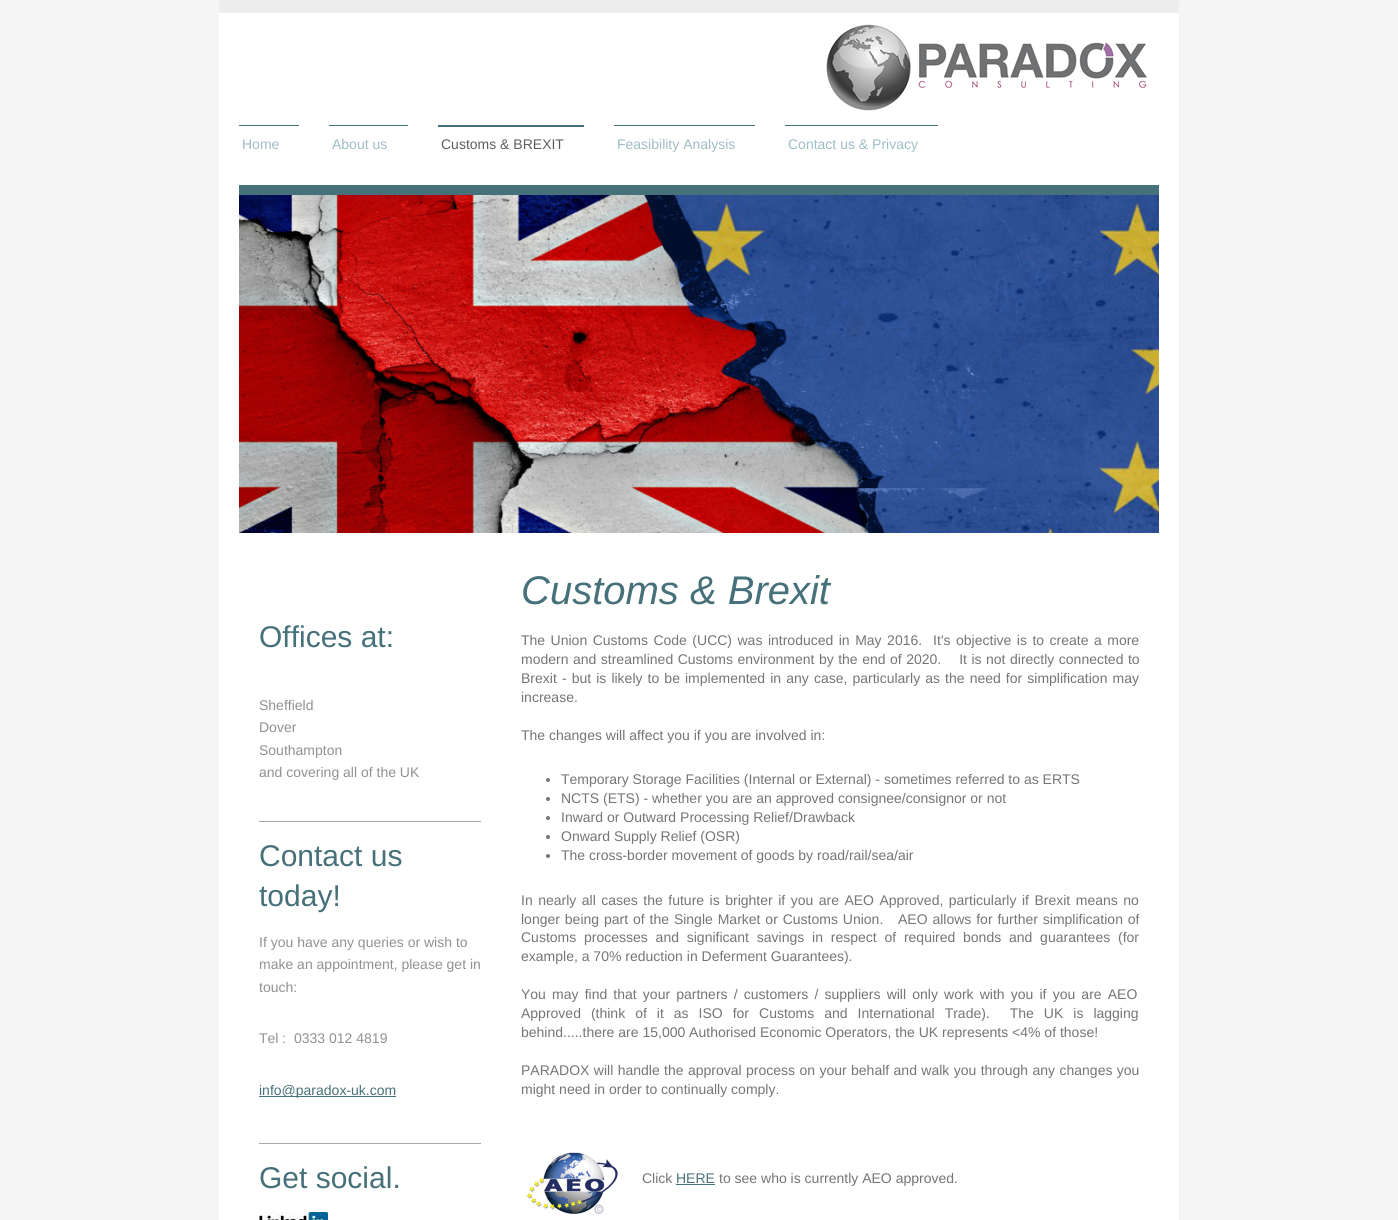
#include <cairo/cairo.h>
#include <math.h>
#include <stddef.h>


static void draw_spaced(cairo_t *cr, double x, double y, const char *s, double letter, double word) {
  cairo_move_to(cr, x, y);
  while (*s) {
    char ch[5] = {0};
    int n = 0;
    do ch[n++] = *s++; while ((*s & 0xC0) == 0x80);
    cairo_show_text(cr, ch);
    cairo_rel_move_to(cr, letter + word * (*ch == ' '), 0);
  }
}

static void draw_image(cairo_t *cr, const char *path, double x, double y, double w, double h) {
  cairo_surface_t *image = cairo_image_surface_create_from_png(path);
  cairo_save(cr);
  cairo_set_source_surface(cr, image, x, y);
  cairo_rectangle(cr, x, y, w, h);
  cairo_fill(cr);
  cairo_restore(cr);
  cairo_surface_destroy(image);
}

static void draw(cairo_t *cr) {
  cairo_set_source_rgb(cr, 245 / 255.0, 245 / 255.0, 245 / 255.0);
  cairo_paint(cr);
  cairo_set_source_rgb(cr, 1, 1, 1);
  cairo_rectangle(cr, 219, 13, 960, 1207);
  cairo_fill(cr);
  cairo_set_source_rgb(cr, 237 / 255.0, 237 / 255.0, 237 / 255.0);
  cairo_rectangle(cr, 219, 0, 960, 13);
  cairo_fill(cr);
  draw_image(cr, "images/1.png", 826, 24, 321, 87);
  cairo_set_source_rgb(cr, 71 / 255.0, 113 / 255.0, 122 / 255.0);
  cairo_rectangle(cr, 239, 125, 60, 1);
  cairo_fill(cr);
  cairo_rectangle(cr, 329, 125, 79, 1);
  cairo_fill(cr);
  cairo_rectangle(cr, 438, 125, 146, 2);
  cairo_fill(cr);
  cairo_rectangle(cr, 614, 125, 141, 1);
  cairo_fill(cr);
  cairo_rectangle(cr, 785, 125, 153, 1);
  cairo_fill(cr);
  cairo_rectangle(cr, 239, 185, 920, 10);
  cairo_fill(cr);
  draw_image(cr, "images/2.png", 239, 195, 920, 338);
  cairo_set_source_rgb(cr, 168 / 255.0, 168 / 255.0, 168 / 255.0);
  cairo_rectangle(cr, 259, 821, 222, 1);
  cairo_fill(cr);
  cairo_set_source_rgb(cr, 71 / 255.0, 113 / 255.0, 122 / 255.0);
  cairo_rectangle(cr, 259, 1096, 137, 1);
  cairo_fill(cr);
  cairo_set_source_rgb(cr, 168 / 255.0, 168 / 255.0, 168 / 255.0);
  cairo_rectangle(cr, 259, 1143, 222, 1);
  cairo_fill(cr);
  draw_image(cr, "images/3.png", 259, 1212, 69, 8);
  cairo_set_source_rgb(cr, 117 / 255.0, 117 / 255.0, 117 / 255.0);
  cairo_arc(cr, 548, 780, 2, 0, 2 * M_PI);
  cairo_fill(cr);
  cairo_arc(cr, 548, 799, 2, 0, 2 * M_PI);
  cairo_fill(cr);
  cairo_arc(cr, 548, 818, 2, 0, 2 * M_PI);
  cairo_fill(cr);
  cairo_arc(cr, 548, 837, 2, 0, 2 * M_PI);
  cairo_fill(cr);
  cairo_arc(cr, 548, 856, 2, 0, 2 * M_PI);
  cairo_fill(cr);
  draw_image(cr, "images/4.png", 526, 1152, 92, 62);
  cairo_set_source_rgb(cr, 71 / 255.0, 113 / 255.0, 122 / 255.0);
  cairo_rectangle(cr, 676, 1184, 39, 1);
  cairo_fill(cr);
  cairo_select_font_face(cr, "Liberation Sans", CAIRO_FONT_SLANT_NORMAL, CAIRO_FONT_WEIGHT_NORMAL);
  cairo_set_font_size(cr, 14);
  cairo_set_source_rgb(cr, 158 / 255.0, 189 / 255.0, 196 / 255.0);
  cairo_move_to(cr, 242, 149);
  cairo_show_text(cr, "Home");
  cairo_move_to(cr, 332, 149);
  cairo_show_text(cr, "About us");
  cairo_set_source_rgb(cr, 94 / 255.0, 94 / 255.0, 94 / 255.0);
  cairo_move_to(cr, 441, 149);
  cairo_show_text(cr, "Customs & BREXIT");
  cairo_set_source_rgb(cr, 158 / 255.0, 189 / 255.0, 196 / 255.0);
  cairo_move_to(cr, 617, 149);
  cairo_show_text(cr, "Feasibility Analysis");
  cairo_move_to(cr, 788, 149);
  cairo_show_text(cr, "Contact us & Privacy");
  cairo_set_font_size(cr, 30);
  cairo_set_source_rgb(cr, 71 / 255.0, 113 / 255.0, 122 / 255.0);
  cairo_move_to(cr, 259, 647);
  cairo_show_text(cr, "Offices at:");
  cairo_set_font_size(cr, 14);
  cairo_set_source_rgb(cr, 145 / 255.0, 145 / 255.0, 145 / 255.0);
  cairo_move_to(cr, 259, 710);
  cairo_show_text(cr, "Sheffield");
  cairo_move_to(cr, 259, 732);
  cairo_show_text(cr, "Dover");
  cairo_move_to(cr, 259, 755);
  cairo_show_text(cr, "Southampton");
  cairo_move_to(cr, 259, 777);
  cairo_show_text(cr, "and covering all of the UK");
  cairo_set_font_size(cr, 30);
  cairo_set_source_rgb(cr, 71 / 255.0, 113 / 255.0, 122 / 255.0);
  cairo_move_to(cr, 259, 866);
  cairo_show_text(cr, "Contact us");
  cairo_move_to(cr, 259, 906);
  cairo_show_text(cr, "today!");
  cairo_set_font_size(cr, 14);
  cairo_set_source_rgb(cr, 145 / 255.0, 145 / 255.0, 145 / 255.0);
  cairo_move_to(cr, 259, 947);
  cairo_show_text(cr, "If you have any queries or wish to");
  cairo_move_to(cr, 259, 969);
  cairo_show_text(cr, "make an appointment, please get in");
  cairo_move_to(cr, 259, 992);
  cairo_show_text(cr, "touch:");
  cairo_move_to(cr, 259, 1043);
  cairo_show_text(cr, "Tel :");
  cairo_move_to(cr, 294, 1043);
  cairo_show_text(cr, "0333 012 4819");
  cairo_set_source_rgb(cr, 71 / 255.0, 113 / 255.0, 122 / 255.0);
  cairo_move_to(cr, 259, 1095);
  cairo_show_text(cr, "info@paradox-uk.com");
  cairo_set_font_size(cr, 30);
  cairo_move_to(cr, 259, 1188);
  cairo_show_text(cr, "Get social.");
  cairo_select_font_face(cr, "Liberation Sans", CAIRO_FONT_SLANT_ITALIC, CAIRO_FONT_WEIGHT_NORMAL);
  cairo_set_font_size(cr, 40);
  cairo_move_to(cr, 521, 604);
  cairo_show_text(cr, "Customs & Brexit");
  cairo_select_font_face(cr, "Liberation Sans", CAIRO_FONT_SLANT_NORMAL, CAIRO_FONT_WEIGHT_NORMAL);
  cairo_set_font_size(cr, 14);
  cairo_set_source_rgb(cr, 117 / 255.0, 117 / 255.0, 117 / 255.0);
  draw_spaced(cr, 521, 645, "The Union Customs Code (UCC) was introduced in May 2016.  It's objective is to create a more", 0, 1.6);
  draw_spaced(cr, 521, 664, "modern and streamlined Customs environment by the end of 2020.    It is not directly connected to", 0, 0.6);
  draw_spaced(cr, 521, 683, "Brexit - but is likely to be implemented in any case, particularly as the need for simplification may", 0, 1.2);
  cairo_move_to(cr, 521, 702);
  cairo_show_text(cr, "increase.");
  cairo_move_to(cr, 521, 740);
  cairo_show_text(cr, "The changes will affect you if you are involved in:");
  cairo_move_to(cr, 561, 784);
  cairo_show_text(cr, "Temporary Storage Facilities (Internal or External) - sometimes referred to as ERTS");
  cairo_move_to(cr, 561, 803);
  cairo_show_text(cr, "NCTS (ETS) - whether you are an approved consignee/consignor or not");
  cairo_move_to(cr, 561, 822);
  cairo_show_text(cr, "Inward or Outward Processing Relief/Drawback");
  cairo_move_to(cr, 561, 841);
  cairo_show_text(cr, "Onward Supply Relief (OSR)");
  cairo_move_to(cr, 561, 860);
  cairo_show_text(cr, "The cross-border movement of goods by road/rail/sea/air");
  draw_spaced(cr, 521, 905, "In nearly all cases the future is brighter if you are AEO Approved, particularly if Brexit means no", 0, 1.6);
  draw_spaced(cr, 521, 924, "longer being part of the Single Market or Customs Union.   AEO allows for further simplification of", 0, 1);
  draw_spaced(cr, 521, 942, "Customs processes and significant savings in respect of required bonds and guarantees (for", 0, 3.9);
  cairo_move_to(cr, 521, 961);
  cairo_show_text(cr, "example, a 70% reduction in Deferment Guarantees).");
  draw_spaced(cr, 521, 999, "You may find that your partners / customers / suppliers will only work with you if you are AEO", 0, 2.25);
  draw_spaced(cr, 521, 1018, "Approved (think of it as ISO for Customs and International Trade).  The UK is lagging", 0, 6.1);
  cairo_move_to(cr, 521, 1037);
  cairo_show_text(cr, "behind.....there are 15,000 Authorised Economic Operators, the UK represents <4% of those!");
  draw_spaced(cr, 521, 1075, "PARADOX will handle the approval process on your behalf and walk you through any changes you", 0, 0.5);
  cairo_move_to(cr, 521, 1094);
  cairo_show_text(cr, "might need in order to continually comply.");
  cairo_move_to(cr, 642, 1183);
  cairo_show_text(cr, "Click");
  cairo_set_source_rgb(cr, 71 / 255.0, 113 / 255.0, 122 / 255.0);
  cairo_move_to(cr, 676, 1183);
  cairo_show_text(cr, "HERE");
  cairo_set_source_rgb(cr, 117 / 255.0, 117 / 255.0, 117 / 255.0);
  cairo_move_to(cr, 719, 1183);
  cairo_show_text(cr, "to see who is currently AEO approved.");
}

int main(void) {
  cairo_surface_t *surface = cairo_image_surface_create(CAIRO_FORMAT_RGB24, 1398, 1220);
  cairo_t *cr = cairo_create(surface);
  cairo_font_options_t *options = cairo_font_options_create();
  cairo_font_options_set_hint_metrics(options, CAIRO_HINT_METRICS_OFF);
  cairo_font_options_set_hint_style(options, CAIRO_HINT_STYLE_NONE);
  cairo_set_font_options(cr, options);
  cairo_set_miter_limit(cr, 4);
  draw(cr);
  cairo_surface_write_to_png(surface, "out.png");
  cairo_font_options_destroy(options);
  cairo_destroy(cr);
  cairo_surface_destroy(surface);
  return 0;
}
